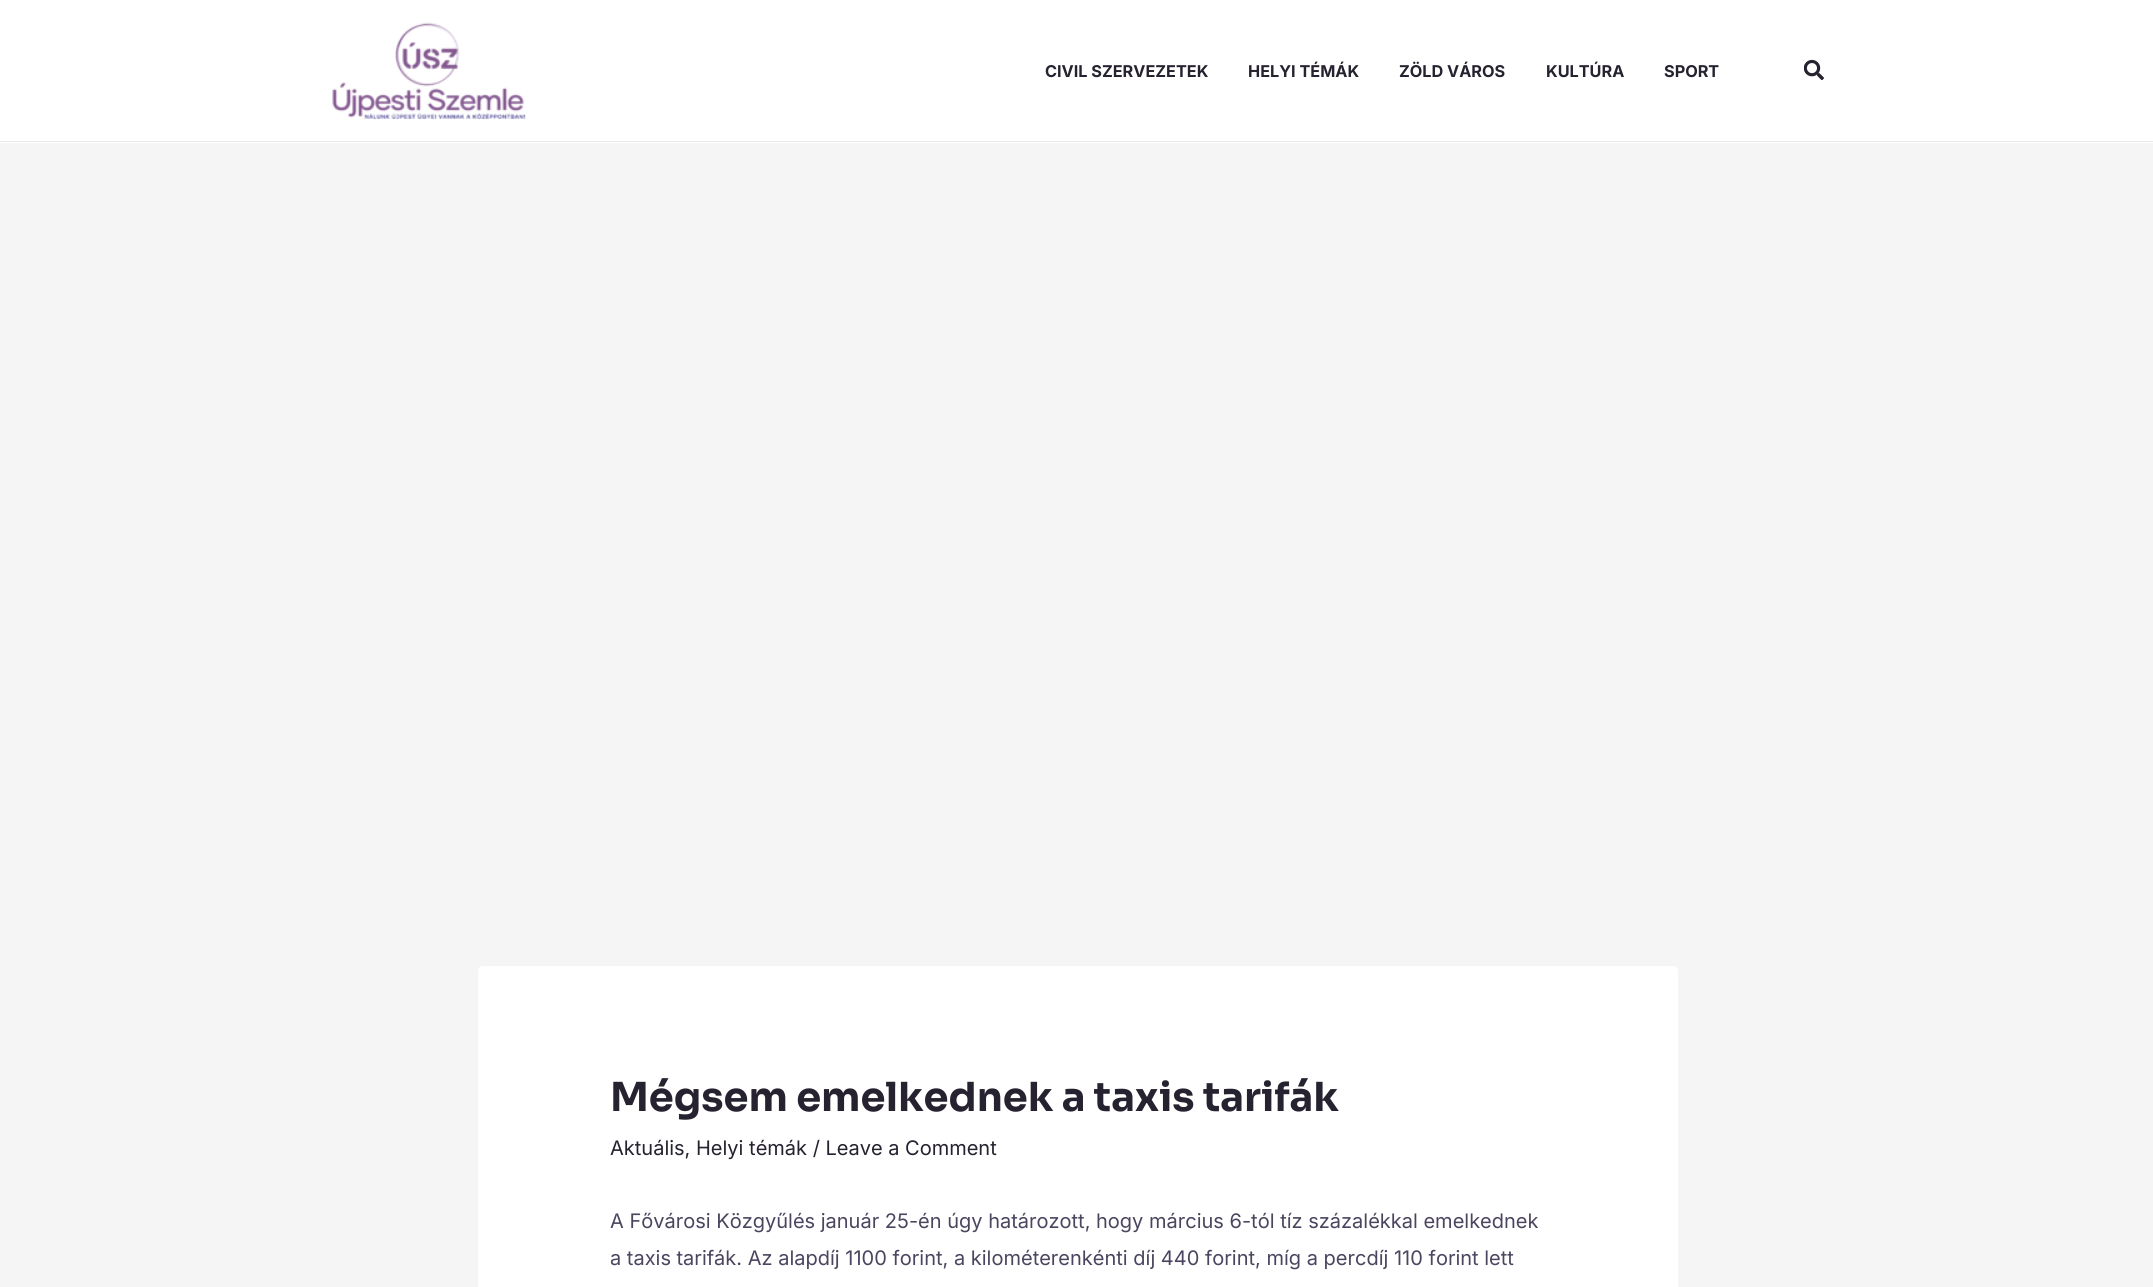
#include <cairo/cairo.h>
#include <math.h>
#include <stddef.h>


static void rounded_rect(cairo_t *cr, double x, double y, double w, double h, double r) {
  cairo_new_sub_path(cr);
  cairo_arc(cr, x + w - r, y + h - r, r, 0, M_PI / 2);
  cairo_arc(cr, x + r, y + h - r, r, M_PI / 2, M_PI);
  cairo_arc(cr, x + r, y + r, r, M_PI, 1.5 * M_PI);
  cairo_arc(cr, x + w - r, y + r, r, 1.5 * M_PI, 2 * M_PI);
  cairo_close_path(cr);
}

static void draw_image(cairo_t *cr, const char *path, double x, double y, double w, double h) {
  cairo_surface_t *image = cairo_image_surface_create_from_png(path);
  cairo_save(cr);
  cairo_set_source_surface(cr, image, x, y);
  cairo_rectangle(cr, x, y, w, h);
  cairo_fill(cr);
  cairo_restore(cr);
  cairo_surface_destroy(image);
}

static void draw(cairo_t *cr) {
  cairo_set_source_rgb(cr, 245 / 255.0, 245 / 255.0, 245 / 255.0);
  cairo_paint(cr);
  cairo_set_source_rgb(cr, 1, 1, 1);
  cairo_rectangle(cr, 0, 0, 2153, 143);
  cairo_fill(cr);
  cairo_set_source_rgb(cr, 234 / 255.0, 234 / 255.0, 234 / 255.0);
  cairo_rectangle(cr, 0, 141, 2153, 1);
  cairo_fill(cr);
  draw_image(cr, "images/1.png", 332, 22, 194, 98);
  draw_image(cr, "images/2.png", 1804, 59, 20, 22);
  cairo_set_source_rgb(cr, 1, 1, 1);
  rounded_rect(cr, 478, 966, 1200, 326, 5);
  cairo_fill(cr);
  cairo_select_font_face(cr, "Inter", CAIRO_FONT_SLANT_NORMAL, CAIRO_FONT_WEIGHT_BOLD);
  cairo_set_font_size(cr, 16.25);
  cairo_set_source_rgb(cr, 38 / 255.0, 34 / 255.0, 47 / 255.0);
  cairo_move_to(cr, 1045, 77);
  cairo_show_text(cr, "CIVIL SZERVEZETEK");
  cairo_move_to(cr, 1248, 77);
  cairo_show_text(cr, "HELYI TÉMÁK");
  cairo_move_to(cr, 1399, 77);
  cairo_show_text(cr, "ZÖLD VÁROS");
  cairo_move_to(cr, 1546, 77);
  cairo_show_text(cr, "KULTÚRA");
  cairo_move_to(cr, 1664, 77);
  cairo_show_text(cr, "SPORT");
  cairo_select_font_face(cr, "Sora", CAIRO_FONT_SLANT_NORMAL, CAIRO_FONT_WEIGHT_BOLD);
  cairo_set_font_size(cr, 40);
  cairo_move_to(cr, 610, 1111);
  cairo_show_text(cr, "Mégsem emelkednek a taxis tarifák");
  cairo_select_font_face(cr, "Inter", CAIRO_FONT_SLANT_NORMAL, CAIRO_FONT_WEIGHT_NORMAL);
  cairo_set_font_size(cr, 20);
  cairo_move_to(cr, 610, 1155);
  cairo_show_text(cr, "Aktuális, Helyi témák / Leave a Comment");
  cairo_set_source_rgb(cr, 76 / 255.0, 69 / 255.0, 95 / 255.0);
  cairo_move_to(cr, 610, 1228);
  cairo_show_text(cr, "A Fővárosi Közgyűlés január 25-én úgy határozott, hogy március 6-tól tíz százalékkal emelkednek");
  cairo_move_to(cr, 610, 1265);
  cairo_show_text(cr, "a taxis tarifák. Az alapdíj 1100 forint, a kilométerenkénti díj 440 forint, míg a percdíj 110 forint lett");
}

int main(void) {
  cairo_surface_t *surface = cairo_image_surface_create(CAIRO_FORMAT_RGB24, 2153, 1287);
  cairo_t *cr = cairo_create(surface);
  cairo_font_options_t *options = cairo_font_options_create();
  cairo_font_options_set_hint_metrics(options, CAIRO_HINT_METRICS_OFF);
  cairo_font_options_set_hint_style(options, CAIRO_HINT_STYLE_NONE);
  cairo_set_font_options(cr, options);
  cairo_set_miter_limit(cr, 4);
  draw(cr);
  cairo_surface_write_to_png(surface, "out.png");
  cairo_font_options_destroy(options);
  cairo_destroy(cr);
  cairo_surface_destroy(surface);
  return 0;
}
